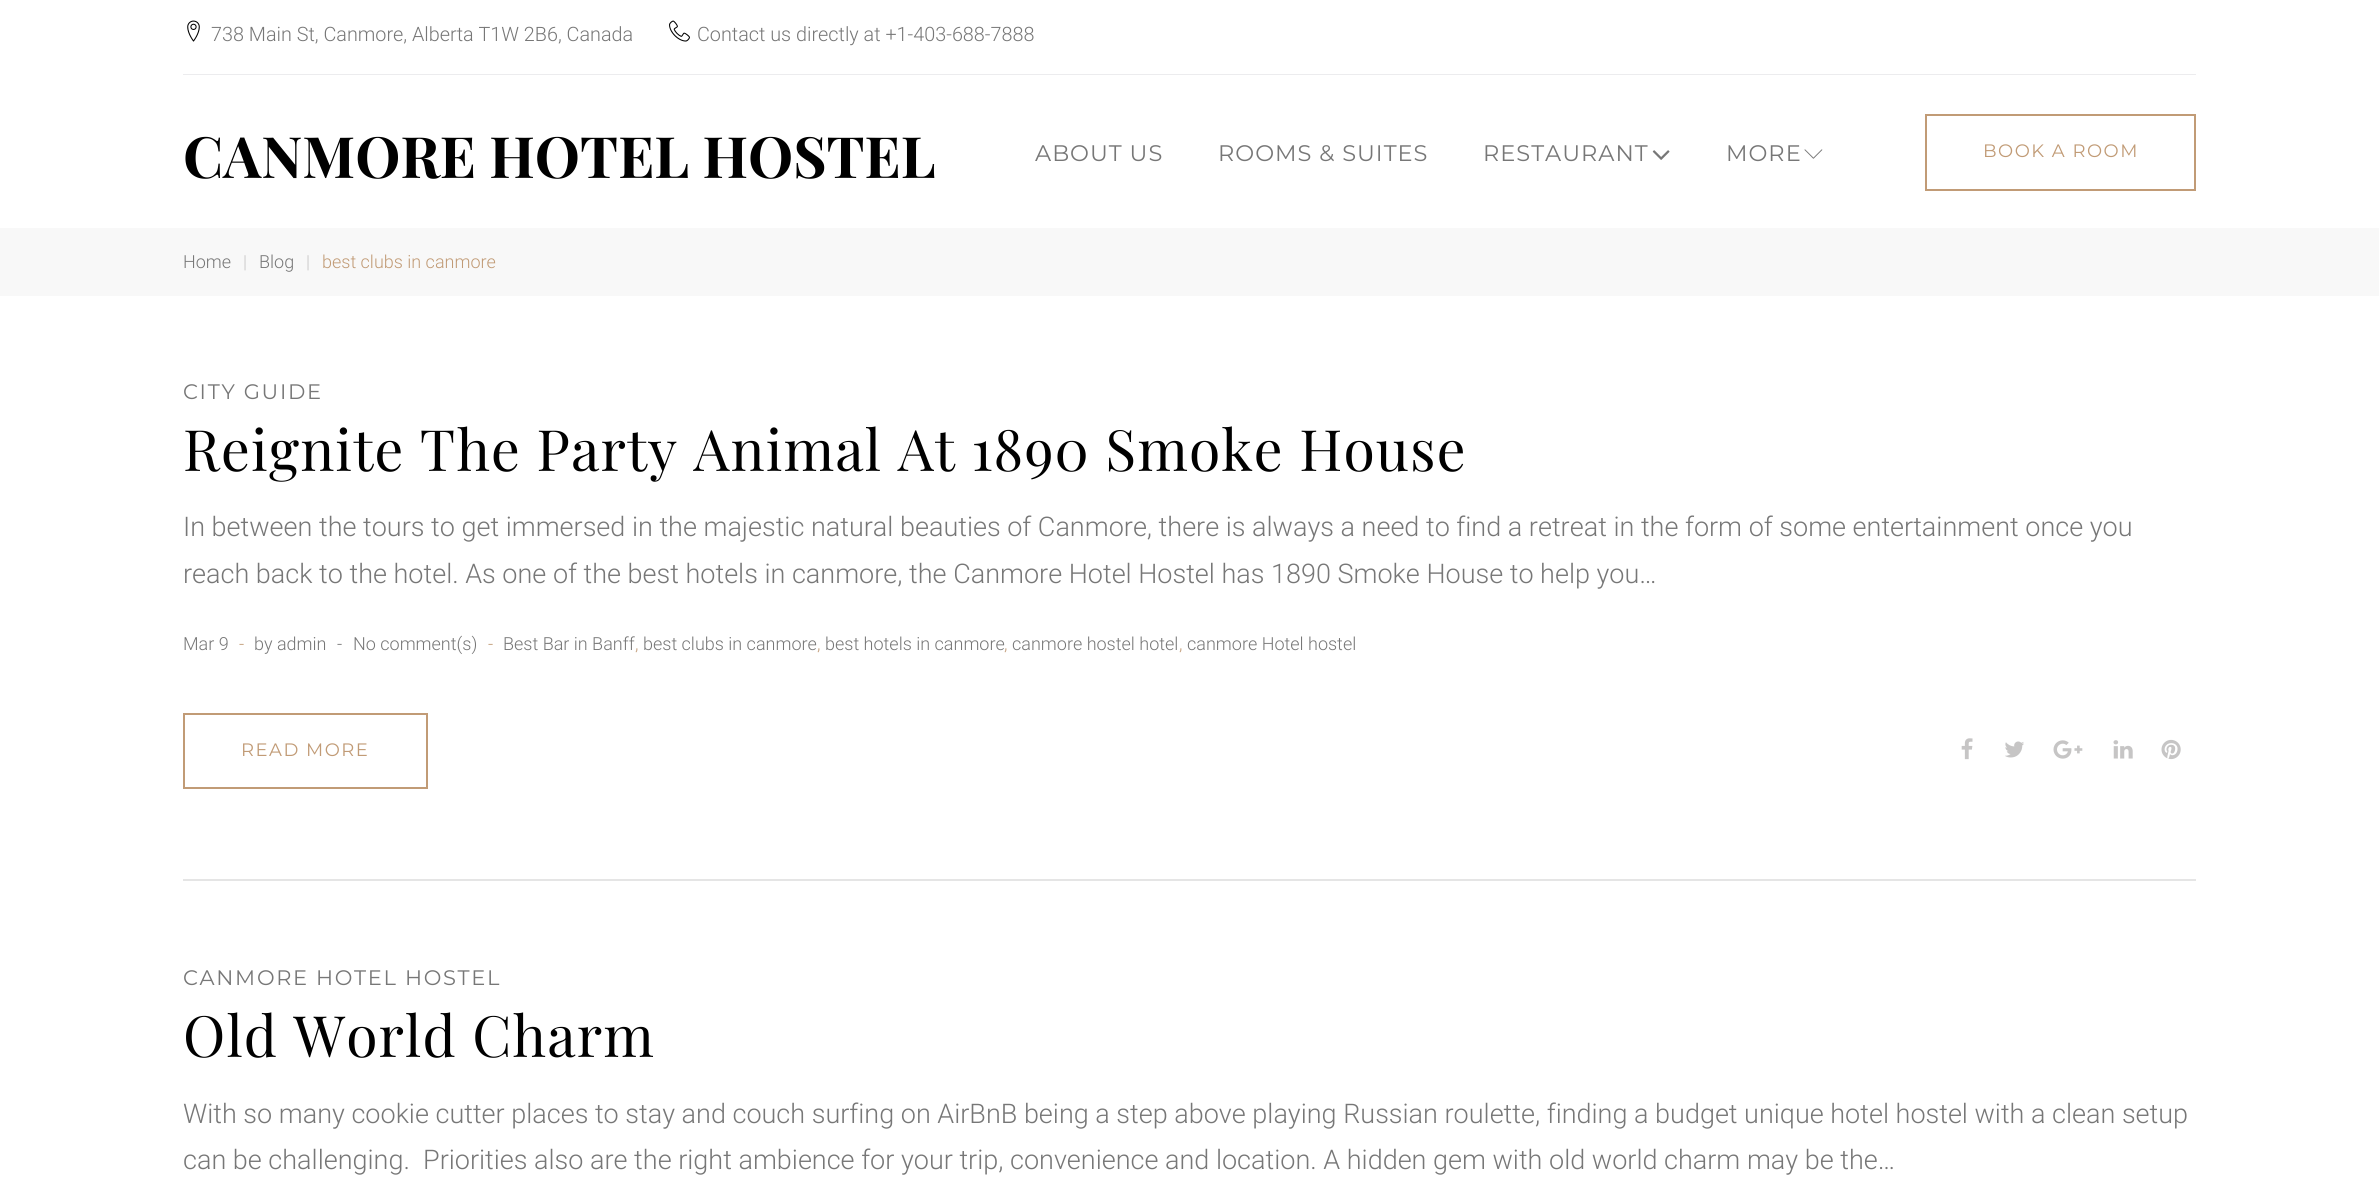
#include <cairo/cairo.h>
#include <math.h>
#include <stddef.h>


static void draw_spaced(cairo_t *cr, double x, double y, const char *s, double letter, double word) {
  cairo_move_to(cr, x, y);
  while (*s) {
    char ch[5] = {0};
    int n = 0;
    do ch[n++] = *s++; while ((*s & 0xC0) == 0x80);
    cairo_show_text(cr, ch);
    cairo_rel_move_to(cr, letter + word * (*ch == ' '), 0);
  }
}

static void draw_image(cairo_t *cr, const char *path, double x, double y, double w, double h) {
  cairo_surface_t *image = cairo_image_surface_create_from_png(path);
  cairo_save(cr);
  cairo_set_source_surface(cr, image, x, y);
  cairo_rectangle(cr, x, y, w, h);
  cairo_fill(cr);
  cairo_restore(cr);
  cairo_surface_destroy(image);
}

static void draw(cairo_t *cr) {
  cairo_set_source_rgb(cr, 1, 1, 1);
  cairo_paint(cr);
  cairo_set_source_rgb(cr, 236 / 255.0, 236 / 255.0, 238 / 255.0);
  cairo_rectangle(cr, 183, 74, 2013, 1);
  cairo_fill(cr);
  draw_image(cr, "images/1.png", 187, 20, 13, 22);
  draw_image(cr, "images/2.png", 669, 20, 21, 22);
  draw_image(cr, "images/3.png", 1652, 150, 18, 10);
  draw_image(cr, "images/4.png", 1804, 149, 19, 10);
  cairo_rectangle(cr, 1926, 115, 269, 75);
  cairo_set_source_rgb(cr, 193 / 255.0, 155 / 255.0, 118 / 255.0);
  cairo_stroke(cr);
  cairo_set_source_rgb(cr, 248 / 255.0, 248 / 255.0, 248 / 255.0);
  cairo_rectangle(cr, 0, 228, 2379, 68);
  cairo_fill(cr);
  cairo_rectangle(cr, 184, 714, 243, 74);
  cairo_set_source_rgb(cr, 193 / 255.0, 155 / 255.0, 118 / 255.0);
  cairo_stroke(cr);
  draw_image(cr, "images/5.png", 1961, 738, 12, 22);
  draw_image(cr, "images/6.png", 2005, 741, 19, 17);
  draw_image(cr, "images/7.png", 2053, 740, 30, 19);
  draw_image(cr, "images/8.png", 2113, 740, 20, 19);
  draw_image(cr, "images/9.png", 2161, 739, 20, 21);
  cairo_set_source_rgb(cr, 229 / 255.0, 229 / 255.0, 229 / 255.0);
  cairo_rectangle(cr, 183, 879, 2013, 2);
  cairo_fill(cr);
  cairo_select_font_face(cr, "Roboto Light", CAIRO_FONT_SLANT_NORMAL, CAIRO_FONT_WEIGHT_NORMAL);
  cairo_set_font_size(cr, 19.8);
  cairo_set_source_rgb(cr, 119 / 255.0, 119 / 255.0, 119 / 255.0);
  cairo_move_to(cr, 211, 41);
  cairo_show_text(cr, "738 Main St, Canmore, Alberta T1W 2B6, Canada");
  cairo_move_to(cr, 697, 41);
  cairo_show_text(cr, "Contact us directly at +1-403-688-7888");
  cairo_select_font_face(cr, "Playfair Display", CAIRO_FONT_SLANT_NORMAL, CAIRO_FONT_WEIGHT_BOLD);
  cairo_set_font_size(cr, 57);
  cairo_set_source_rgb(cr, 0, 0, 0);
  cairo_move_to(cr, 183, 178);
  cairo_show_text(cr, "CANMORE HOTEL HOSTEL");
  cairo_select_font_face(cr, "Montserrat Thin", CAIRO_FONT_SLANT_NORMAL, CAIRO_FONT_WEIGHT_NORMAL);
  cairo_set_font_size(cr, 22.5);
  cairo_set_source_rgb(cr, 119 / 255.0, 119 / 255.0, 119 / 255.0);
  draw_spaced(cr, 1035, 161, "ABOUT US", 1, 0);
  draw_spaced(cr, 1218, 161, "ROOMS & SUITES", 1, 0);
  draw_spaced(cr, 1483, 161, "RESTAURANT", 1, 0);
  draw_spaced(cr, 1726, 161, "MORE", 1, 0);
  cairo_set_font_size(cr, 18);
  cairo_set_source_rgb(cr, 193 / 255.0, 155 / 255.0, 118 / 255.0);
  draw_spaced(cr, 1983, 157, "BOOK A ROOM", 1.5, 0);
  cairo_select_font_face(cr, "Roboto Light", CAIRO_FONT_SLANT_NORMAL, CAIRO_FONT_WEIGHT_NORMAL);
  cairo_set_source_rgb(cr, 119 / 255.0, 119 / 255.0, 119 / 255.0);
  cairo_move_to(cr, 183, 268);
  cairo_show_text(cr, "Home");
  cairo_set_source_rgb(cr, 198 / 255.0, 197 / 255.0, 197 / 255.0);
  cairo_move_to(cr, 243, 268);
  cairo_show_text(cr, "|");
  cairo_set_source_rgb(cr, 119 / 255.0, 119 / 255.0, 119 / 255.0);
  cairo_move_to(cr, 259, 268);
  cairo_show_text(cr, "Blog");
  cairo_set_source_rgb(cr, 198 / 255.0, 197 / 255.0, 197 / 255.0);
  cairo_move_to(cr, 306, 268);
  cairo_show_text(cr, "|");
  cairo_set_source_rgb(cr, 193 / 255.0, 155 / 255.0, 118 / 255.0);
  cairo_move_to(cr, 322, 268);
  cairo_show_text(cr, "best clubs in canmore");
  cairo_select_font_face(cr, "Montserrat Thin", CAIRO_FONT_SLANT_NORMAL, CAIRO_FONT_WEIGHT_NORMAL);
  cairo_set_font_size(cr, 21);
  cairo_set_source_rgb(cr, 119 / 255.0, 119 / 255.0, 119 / 255.0);
  draw_spaced(cr, 183, 399, "CITY GUIDE", 1.7, 0);
  cairo_select_font_face(cr, "Playfair Display", CAIRO_FONT_SLANT_NORMAL, CAIRO_FONT_WEIGHT_NORMAL);
  cairo_set_font_size(cr, 57);
  cairo_set_source_rgb(cr, 0, 0, 0);
  draw_spaced(cr, 183, 471, "Reignite The Party Animal At 1890 Smoke House", 1.15, 0);
  cairo_select_font_face(cr, "Roboto Light", CAIRO_FONT_SLANT_NORMAL, CAIRO_FONT_WEIGHT_NORMAL);
  cairo_set_font_size(cr, 27);
  cairo_set_source_rgb(cr, 119 / 255.0, 119 / 255.0, 119 / 255.0);
  cairo_move_to(cr, 183, 536);
  cairo_show_text(cr, "In between the tours to get immersed in the majestic natural beauties of Canmore, there is always a need to find a retreat in the form of some entertainment once you");
  cairo_move_to(cr, 183, 583);
  cairo_show_text(cr, "reach back to the hotel. As one of the best hotels in canmore, the Canmore Hotel Hostel has 1890 Smoke House to help you…");
  cairo_set_font_size(cr, 18);
  cairo_move_to(cr, 183, 650);
  cairo_show_text(cr, "Mar 9");
  cairo_set_source_rgb(cr, 193 / 255.0, 155 / 255.0, 118 / 255.0);
  cairo_move_to(cr, 239, 650);
  cairo_show_text(cr, "-");
  cairo_set_source_rgb(cr, 119 / 255.0, 119 / 255.0, 119 / 255.0);
  cairo_move_to(cr, 254, 650);
  cairo_show_text(cr, "by admin");
  cairo_move_to(cr, 337, 650);
  cairo_show_text(cr, "-");
  cairo_move_to(cr, 353, 650);
  cairo_show_text(cr, "No comment(s)");
  cairo_set_source_rgb(cr, 193 / 255.0, 155 / 255.0, 118 / 255.0);
  cairo_move_to(cr, 488, 650);
  cairo_show_text(cr, "-");
  cairo_set_source_rgb(cr, 119 / 255.0, 119 / 255.0, 119 / 255.0);
  cairo_move_to(cr, 503, 650);
  cairo_show_text(cr, "Best Bar in Banff");
  cairo_set_source_rgb(cr, 193 / 255.0, 155 / 255.0, 118 / 255.0);
  cairo_move_to(cr, 635, 650);
  cairo_show_text(cr, ",");
  cairo_set_source_rgb(cr, 119 / 255.0, 119 / 255.0, 119 / 255.0);
  cairo_move_to(cr, 643, 650);
  cairo_show_text(cr, "best clubs in canmore");
  cairo_set_source_rgb(cr, 193 / 255.0, 155 / 255.0, 118 / 255.0);
  cairo_move_to(cr, 817, 650);
  cairo_show_text(cr, ",");
  cairo_set_source_rgb(cr, 119 / 255.0, 119 / 255.0, 119 / 255.0);
  cairo_move_to(cr, 825, 650);
  cairo_show_text(cr, "best hotels in canmore");
  cairo_set_source_rgb(cr, 193 / 255.0, 155 / 255.0, 118 / 255.0);
  cairo_move_to(cr, 1004, 650);
  cairo_show_text(cr, ",");
  cairo_set_source_rgb(cr, 119 / 255.0, 119 / 255.0, 119 / 255.0);
  cairo_move_to(cr, 1012, 650);
  cairo_show_text(cr, "canmore hostel hotel");
  cairo_set_source_rgb(cr, 193 / 255.0, 155 / 255.0, 118 / 255.0);
  cairo_move_to(cr, 1179, 650);
  cairo_show_text(cr, ",");
  cairo_set_source_rgb(cr, 119 / 255.0, 119 / 255.0, 119 / 255.0);
  cairo_move_to(cr, 1187, 650);
  cairo_show_text(cr, "canmore Hotel hostel");
  cairo_select_font_face(cr, "Montserrat Thin", CAIRO_FONT_SLANT_NORMAL, CAIRO_FONT_WEIGHT_NORMAL);
  cairo_set_source_rgb(cr, 193 / 255.0, 155 / 255.0, 118 / 255.0);
  draw_spaced(cr, 241, 756, "READ MORE", 1.5, 0);
  cairo_set_font_size(cr, 21);
  cairo_set_source_rgb(cr, 119 / 255.0, 119 / 255.0, 119 / 255.0);
  draw_spaced(cr, 183, 985, "CANMORE HOTEL HOSTEL", 1.7, 0);
  cairo_select_font_face(cr, "Playfair Display", CAIRO_FONT_SLANT_NORMAL, CAIRO_FONT_WEIGHT_NORMAL);
  cairo_set_font_size(cr, 57);
  cairo_set_source_rgb(cr, 0, 0, 0);
  draw_spaced(cr, 183, 1057, "Old World Charm", 1.15, 0);
  cairo_select_font_face(cr, "Roboto Light", CAIRO_FONT_SLANT_NORMAL, CAIRO_FONT_WEIGHT_NORMAL);
  cairo_set_font_size(cr, 27);
  cairo_set_source_rgb(cr, 119 / 255.0, 119 / 255.0, 119 / 255.0);
  cairo_move_to(cr, 183, 1123);
  cairo_show_text(cr, "With so many cookie cutter places to stay and couch surfing on AirBnB being a step above playing Russian roulette, finding a budget unique hotel hostel with a clean setup");
  cairo_move_to(cr, 183, 1169);
  cairo_show_text(cr, "can be challenging.  Priorities also are the right ambience for your trip, convenience and location. A hidden gem with old world charm may be the…");
}

int main(void) {
  cairo_surface_t *surface = cairo_image_surface_create(CAIRO_FORMAT_RGB24, 2379, 1201);
  cairo_t *cr = cairo_create(surface);
  cairo_font_options_t *options = cairo_font_options_create();
  cairo_font_options_set_hint_metrics(options, CAIRO_HINT_METRICS_OFF);
  cairo_font_options_set_hint_style(options, CAIRO_HINT_STYLE_NONE);
  cairo_set_font_options(cr, options);
  cairo_set_miter_limit(cr, 4);
  draw(cr);
  cairo_surface_write_to_png(surface, "out.png");
  cairo_font_options_destroy(options);
  cairo_destroy(cr);
  cairo_surface_destroy(surface);
  return 0;
}
